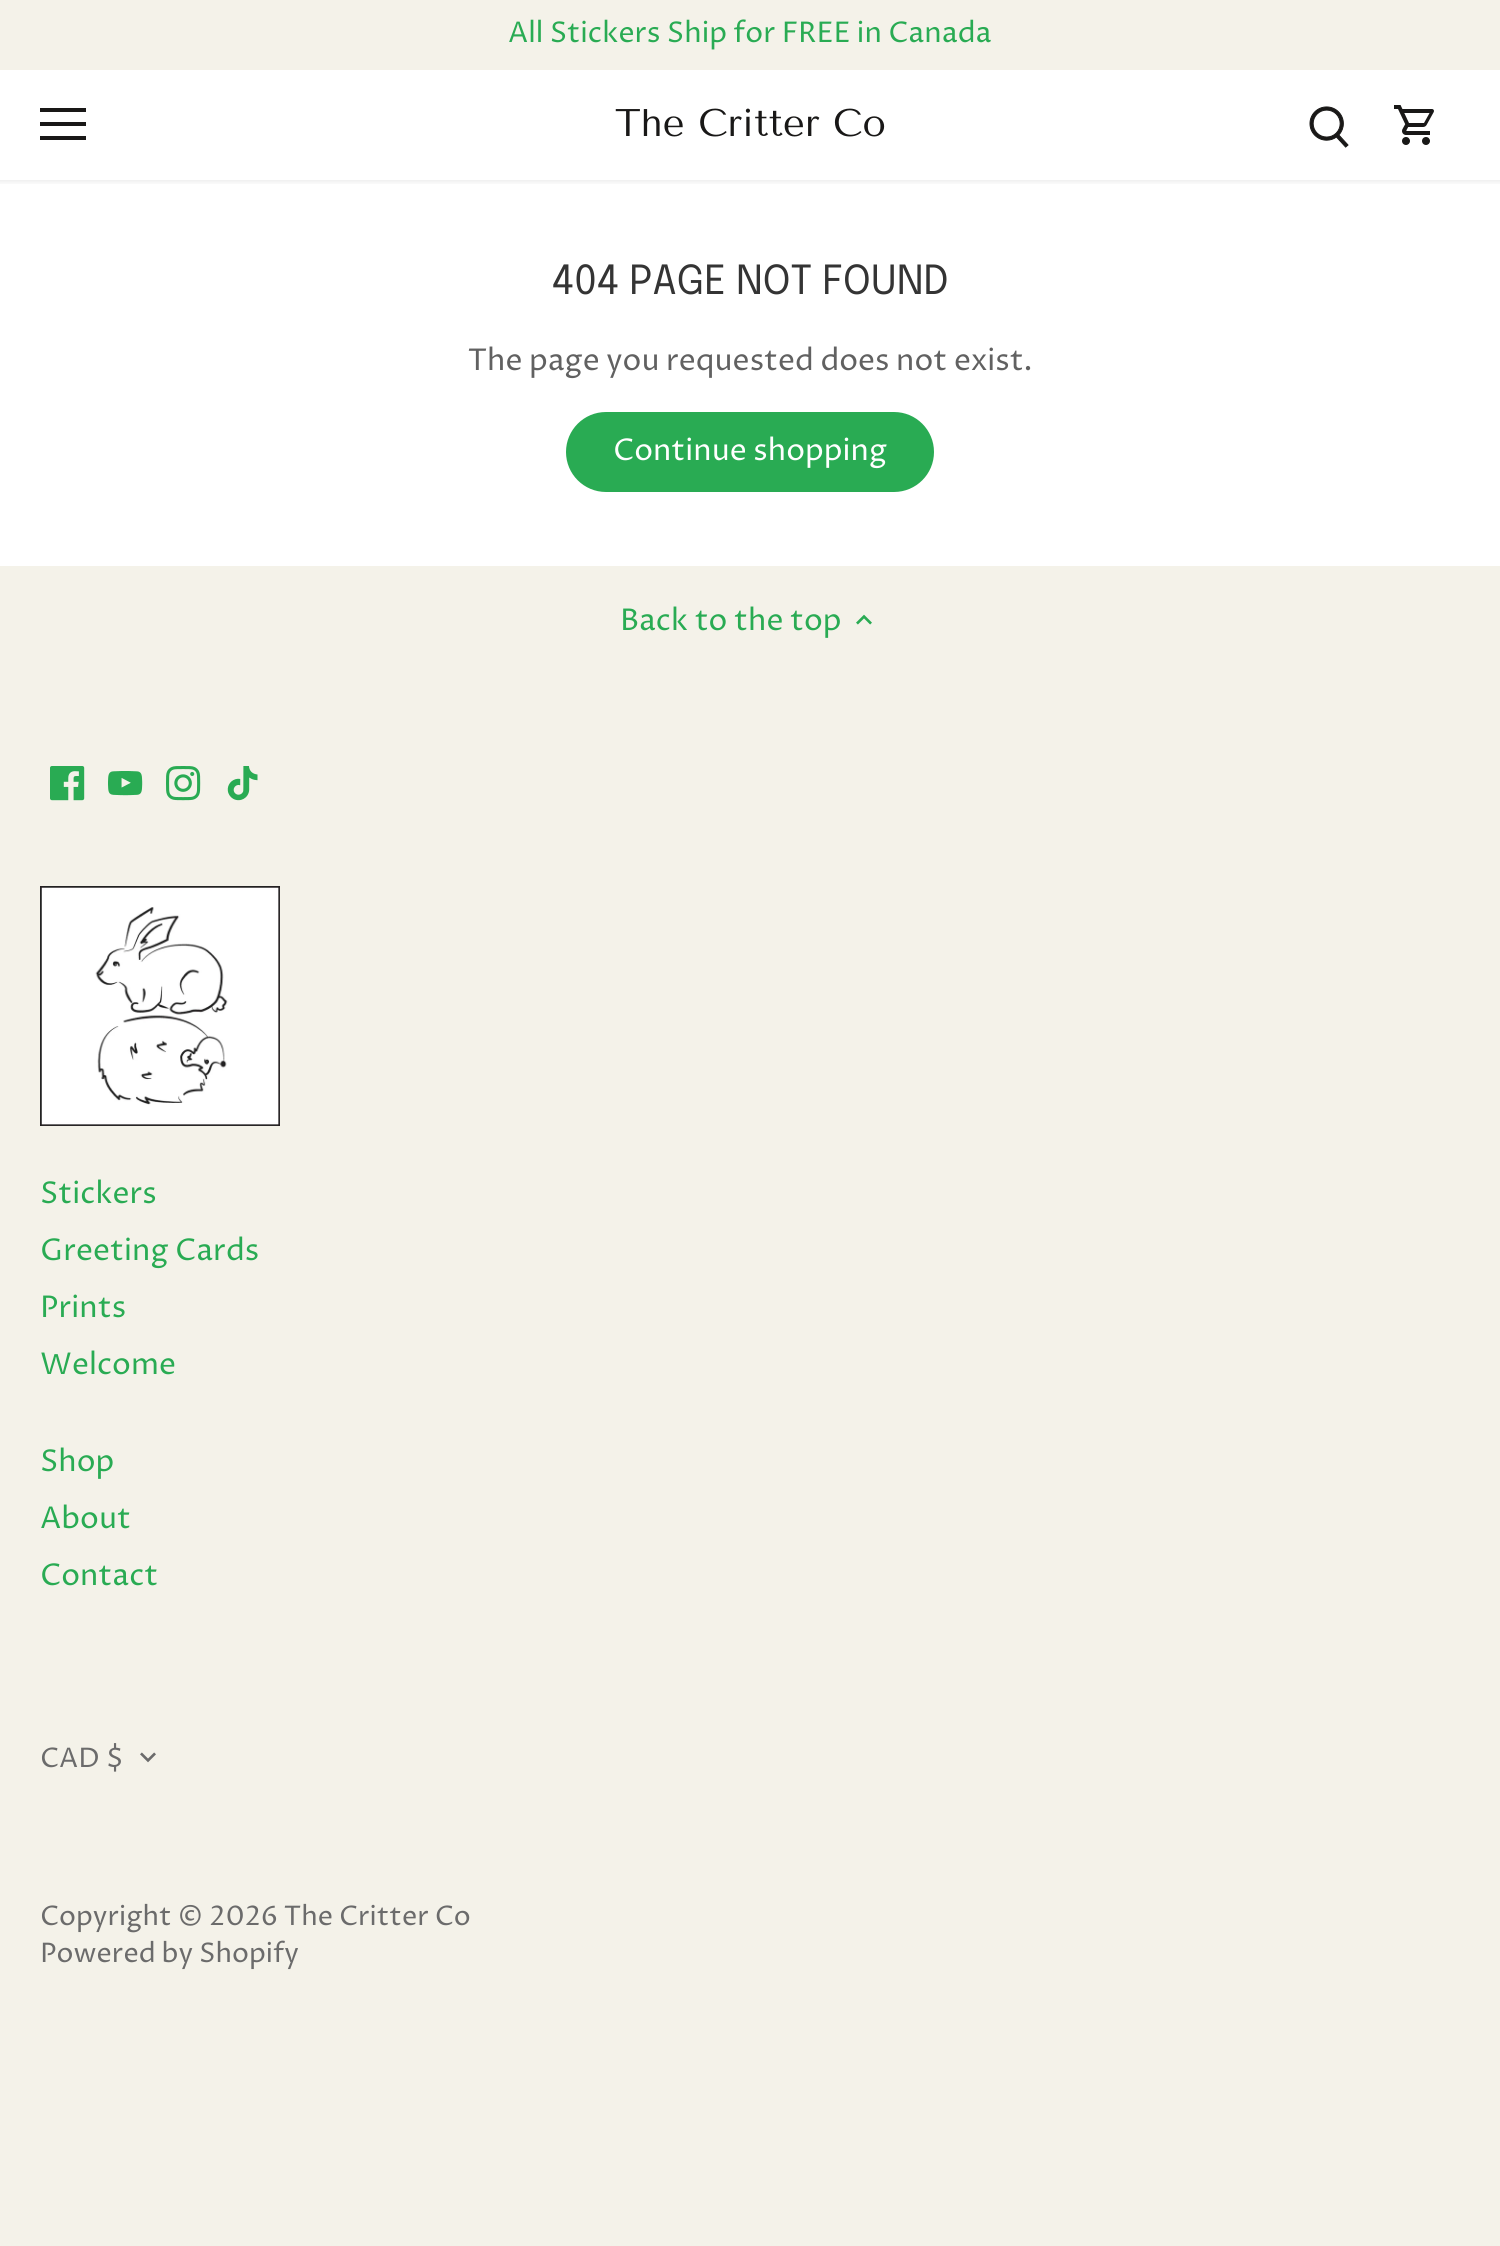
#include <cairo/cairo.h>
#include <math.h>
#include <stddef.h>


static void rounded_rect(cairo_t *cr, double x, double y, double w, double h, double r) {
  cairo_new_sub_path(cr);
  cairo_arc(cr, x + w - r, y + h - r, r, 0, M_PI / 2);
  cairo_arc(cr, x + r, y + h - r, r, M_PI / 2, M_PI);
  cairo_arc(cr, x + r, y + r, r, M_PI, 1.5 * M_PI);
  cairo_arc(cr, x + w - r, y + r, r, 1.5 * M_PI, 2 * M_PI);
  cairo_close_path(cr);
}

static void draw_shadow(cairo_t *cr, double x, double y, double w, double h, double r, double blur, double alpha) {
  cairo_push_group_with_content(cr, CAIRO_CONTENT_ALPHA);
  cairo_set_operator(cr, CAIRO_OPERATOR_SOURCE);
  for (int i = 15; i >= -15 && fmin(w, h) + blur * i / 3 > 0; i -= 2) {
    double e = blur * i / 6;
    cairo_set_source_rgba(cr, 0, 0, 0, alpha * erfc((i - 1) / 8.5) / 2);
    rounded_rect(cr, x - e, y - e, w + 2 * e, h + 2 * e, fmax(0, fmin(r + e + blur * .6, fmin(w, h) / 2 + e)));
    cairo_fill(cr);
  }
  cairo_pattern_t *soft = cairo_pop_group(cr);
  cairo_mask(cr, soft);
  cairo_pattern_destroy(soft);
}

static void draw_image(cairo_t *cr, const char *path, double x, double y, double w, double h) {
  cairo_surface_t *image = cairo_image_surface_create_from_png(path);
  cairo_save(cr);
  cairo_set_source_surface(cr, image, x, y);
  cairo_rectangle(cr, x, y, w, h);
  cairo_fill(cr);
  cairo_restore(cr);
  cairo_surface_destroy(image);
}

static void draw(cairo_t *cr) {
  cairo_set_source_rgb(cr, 244 / 255.0, 242 / 255.0, 233 / 255.0);
  cairo_paint(cr);
  cairo_set_source_rgb(cr, 1, 1, 1);
  cairo_rectangle(cr, 0, 70, 1500, 496);
  cairo_fill(cr);
  cairo_save(cr);
  cairo_rectangle(cr, 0, 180, 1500, 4);
  cairo_clip(cr);
  cairo_set_source_rgb(cr, 0, 0, 0);
  draw_shadow(cr, -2, 68, 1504, 114, 0, 3, 0.08);
  cairo_restore(cr);
  cairo_set_source_rgb(cr, 244 / 255.0, 242 / 255.0, 233 / 255.0);
  cairo_rectangle(cr, 0, 65, 1500, 5);
  cairo_fill(cr);
  cairo_set_source_rgb(cr, 25 / 255.0, 24 / 255.0, 23 / 255.0);
  cairo_rectangle(cr, 40, 108, 46, 4);
  cairo_fill(cr);
  cairo_rectangle(cr, 40, 122, 46, 4);
  cairo_fill(cr);
  cairo_rectangle(cr, 40, 136, 46, 4);
  cairo_fill(cr);
  draw_image(cr, "images/1.png", 1309, 106, 40, 42);
  draw_image(cr, "images/2.png", 1394, 105, 40, 40);
  cairo_set_source_rgb(cr, 41 / 255.0, 171 / 255.0, 83 / 255.0);
  rounded_rect(cr, 568, 414, 364, 76, 38);
  cairo_fill_preserve(cr);
  cairo_set_line_width(cr, 4);
  cairo_stroke(cr);
  draw_image(cr, "images/3.png", 856, 614, 16, 11);
  draw_image(cr, "images/4.png", 50, 766, 35, 35);
  draw_image(cr, "images/5.png", 108, 771, 35, 25);
  draw_image(cr, "images/6.png", 166, 766, 35, 35);
  draw_image(cr, "images/7.png", 227, 766, 31, 35);
  draw_image(cr, "images/8.png", 40, 886, 240, 240);
  draw_image(cr, "images/9.png", 140, 1752, 16, 11);
  cairo_select_font_face(cr, "Proza Libre", CAIRO_FONT_SLANT_NORMAL, CAIRO_FONT_WEIGHT_NORMAL);
  cairo_set_font_size(cr, 28.5);
  cairo_move_to(cr, 508, 42);
  cairo_show_text(cr, "All Stickers Ship for FREE in Canada");
  cairo_select_font_face(cr, "Tenor Sans", CAIRO_FONT_SLANT_NORMAL, CAIRO_FONT_WEIGHT_NORMAL);
  cairo_set_font_size(cr, 38.5);
  cairo_set_source_rgb(cr, 25 / 255.0, 24 / 255.0, 23 / 255.0);
  cairo_move_to(cr, 615, 136);
  cairo_show_text(cr, "The Critter Co");
  cairo_select_font_face(cr, "Epilogue", CAIRO_FONT_SLANT_NORMAL, CAIRO_FONT_WEIGHT_NORMAL);
  cairo_set_font_size(cr, 40);
  cairo_set_source_rgb(cr, 52 / 255.0, 52 / 255.0, 52 / 255.0);
  cairo_move_to(cr, 552, 294);
  cairo_show_text(cr, "404 PAGE NOT FOUND");
  cairo_select_font_face(cr, "Proza Libre", CAIRO_FONT_SLANT_NORMAL, CAIRO_FONT_WEIGHT_NORMAL);
  cairo_set_font_size(cr, 30);
  cairo_set_source_rgb(cr, 97 / 255.0, 97 / 255.0, 97 / 255.0);
  cairo_move_to(cr, 468, 370);
  cairo_show_text(cr, "The page you requested does not exist.");
  cairo_set_source_rgb(cr, 1, 1, 1);
  cairo_move_to(cr, 613, 460);
  cairo_show_text(cr, "Continue shopping");
  cairo_set_source_rgb(cr, 41 / 255.0, 171 / 255.0, 83 / 255.0);
  cairo_move_to(cr, 620, 630);
  cairo_show_text(cr, "Back to the top");
  cairo_move_to(cr, 40, 1203);
  cairo_show_text(cr, "Stickers");
  cairo_move_to(cr, 40, 1260);
  cairo_show_text(cr, "Greeting Cards");
  cairo_move_to(cr, 40, 1317);
  cairo_show_text(cr, "Prints");
  cairo_move_to(cr, 40, 1374);
  cairo_show_text(cr, "Welcome");
  cairo_move_to(cr, 40, 1471);
  cairo_show_text(cr, "Shop");
  cairo_move_to(cr, 40, 1528);
  cairo_show_text(cr, "About");
  cairo_move_to(cr, 40, 1585);
  cairo_show_text(cr, "Contact");
  cairo_set_font_size(cr, 27);
  cairo_set_source_rgb(cr, 107 / 255.0, 107 / 255.0, 107 / 255.0);
  cairo_move_to(cr, 40, 1767);
  cairo_show_text(cr, "CAD $");
  cairo_move_to(cr, 40, 1925);
  cairo_show_text(cr, "Copyright © 2026 The Critter Co");
  cairo_move_to(cr, 40, 1962);
  cairo_show_text(cr, "Powered by Shopify");
}

int main(void) {
  cairo_surface_t *surface = cairo_image_surface_create(CAIRO_FORMAT_RGB24, 1500, 2246);
  cairo_t *cr = cairo_create(surface);
  cairo_font_options_t *options = cairo_font_options_create();
  cairo_font_options_set_hint_metrics(options, CAIRO_HINT_METRICS_OFF);
  cairo_font_options_set_hint_style(options, CAIRO_HINT_STYLE_NONE);
  cairo_set_font_options(cr, options);
  cairo_set_miter_limit(cr, 4);
  draw(cr);
  cairo_surface_write_to_png(surface, "out.png");
  cairo_font_options_destroy(options);
  cairo_destroy(cr);
  cairo_surface_destroy(surface);
  return 0;
}
